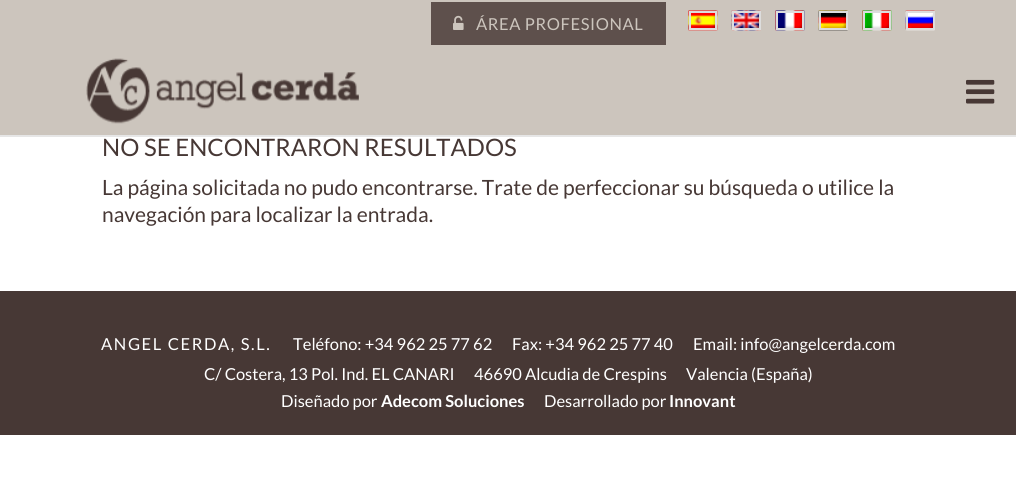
#include <cairo/cairo.h>
#include <math.h>
#include <stddef.h>


static void draw_spaced(cairo_t *cr, double x, double y, const char *s, double letter, double word) {
  cairo_move_to(cr, x, y);
  while (*s) {
    char ch[5] = {0};
    int n = 0;
    do ch[n++] = *s++; while ((*s & 0xC0) == 0x80);
    cairo_show_text(cr, ch);
    cairo_rel_move_to(cr, letter + word * (*ch == ' '), 0);
  }
}

static void draw_image(cairo_t *cr, const char *path, double x, double y, double w, double h) {
  cairo_surface_t *image = cairo_image_surface_create_from_png(path);
  cairo_save(cr);
  cairo_set_source_surface(cr, image, x, y);
  cairo_rectangle(cr, x, y, w, h);
  cairo_fill(cr);
  cairo_restore(cr);
  cairo_surface_destroy(image);
}

static void draw(cairo_t *cr) {
  cairo_set_source_rgb(cr, 1, 1, 1);
  cairo_paint(cr);
  cairo_set_source_rgb(cr, 230 / 255.0, 230 / 255.0, 230 / 255.0);
  cairo_rectangle(cr, 0, 135, 1016, 2);
  cairo_fill(cr);
  cairo_set_source_rgb(cr, 204 / 255.0, 197 / 255.0, 189 / 255.0);
  cairo_rectangle(cr, 0, 0, 1016, 135);
  cairo_fill(cr);
  cairo_set_source_rgb(cr, 94 / 255.0, 80 / 255.0, 76 / 255.0);
  cairo_rectangle(cr, 431, 2, 235, 43);
  cairo_fill(cr);
  draw_image(cr, "images/1.png", 453, 15, 11, 15);
  draw_image(cr, "images/2.png", 688, 10, 30, 21);
  cairo_rectangle(cr, 690, 12, 26, 17);
  cairo_set_source_rgb(cr, 221 / 255.0, 221 / 255.0, 221 / 255.0);
  cairo_stroke(cr);
  draw_image(cr, "images/3.png", 731, 10, 30, 21);
  cairo_rectangle(cr, 733, 12, 27, 17);
  cairo_stroke(cr);
  draw_image(cr, "images/4.png", 775, 10, 30, 21);
  cairo_rectangle(cr, 777, 12, 26, 17);
  cairo_stroke(cr);
  draw_image(cr, "images/5.png", 818, 10, 30, 21);
  cairo_rectangle(cr, 820, 12, 27, 17);
  cairo_stroke(cr);
  draw_image(cr, "images/6.png", 862, 10, 30, 21);
  cairo_rectangle(cr, 864, 12, 26, 17);
  cairo_stroke(cr);
  draw_image(cr, "images/7.png", 905, 10, 30, 21);
  cairo_rectangle(cr, 907, 12, 27, 17);
  cairo_stroke(cr);
  draw_image(cr, "images/8.png", 86, 58, 273, 66);
  draw_image(cr, "images/9.png", 966, 79, 29, 25);
  cairo_set_source_rgb(cr, 71 / 255.0, 56 / 255.0, 53 / 255.0);
  cairo_rectangle(cr, 0, 291, 1016, 144);
  cairo_fill(cr);
  cairo_select_font_face(cr, "Lato", CAIRO_FONT_SLANT_NORMAL, CAIRO_FONT_WEIGHT_NORMAL);
  cairo_set_font_size(cr, 16.5);
  cairo_set_source_rgb(cr, 204 / 255.0, 197 / 255.0, 189 / 255.0);
  draw_spaced(cr, 476, 30, "ÁREA PROFESIONAL", 0.6, 0);
  cairo_set_font_size(cr, 24);
  cairo_set_source_rgb(cr, 71 / 255.0, 56 / 255.0, 53 / 255.0);
  cairo_move_to(cr, 102, 156);
  cairo_show_text(cr, "NO SE ENCONTRARON RESULTADOS");
  cairo_set_font_size(cr, 21);
  cairo_move_to(cr, 102, 195);
  cairo_show_text(cr, "La página solicitada no pudo encontrarse. Trate de perfeccionar su búsqueda o utilice la");
  cairo_move_to(cr, 102, 222);
  cairo_show_text(cr, "navegación para localizar la entrada.");
  cairo_set_font_size(cr, 16.5);
  cairo_set_source_rgb(cr, 1, 1, 1);
  draw_spaced(cr, 101, 350, "ANGEL CERDA, S.L.", 1.6, 0);
  cairo_move_to(cr, 293, 350);
  cairo_show_text(cr, "Teléfono: +34 962 25 77 62");
  cairo_move_to(cr, 512, 350);
  cairo_show_text(cr, "Fax: +34 962 25 77 40");
  cairo_move_to(cr, 693, 350);
  cairo_show_text(cr, "Email: info@angelcerda.com");
  cairo_move_to(cr, 204, 380);
  cairo_show_text(cr, "C/ Costera, 13 Pol. Ind. EL CANARI");
  cairo_move_to(cr, 474, 380);
  cairo_show_text(cr, "46690 Alcudia de Crespins");
  cairo_move_to(cr, 686, 380);
  cairo_show_text(cr, "Valencia (España)");
  cairo_move_to(cr, 281, 407);
  cairo_show_text(cr, "Diseñado por");
  cairo_select_font_face(cr, "Lato", CAIRO_FONT_SLANT_NORMAL, CAIRO_FONT_WEIGHT_BOLD);
  cairo_move_to(cr, 381, 407);
  cairo_show_text(cr, "Adecom Soluciones");
  cairo_select_font_face(cr, "Lato", CAIRO_FONT_SLANT_NORMAL, CAIRO_FONT_WEIGHT_NORMAL);
  cairo_move_to(cr, 544, 407);
  cairo_show_text(cr, "Desarrollado por");
  cairo_select_font_face(cr, "Lato", CAIRO_FONT_SLANT_NORMAL, CAIRO_FONT_WEIGHT_BOLD);
  cairo_move_to(cr, 669, 407);
  cairo_show_text(cr, "Innovant");
}

int main(void) {
  cairo_surface_t *surface = cairo_image_surface_create(CAIRO_FORMAT_RGB24, 1016, 503);
  cairo_t *cr = cairo_create(surface);
  cairo_font_options_t *options = cairo_font_options_create();
  cairo_font_options_set_hint_metrics(options, CAIRO_HINT_METRICS_OFF);
  cairo_font_options_set_hint_style(options, CAIRO_HINT_STYLE_NONE);
  cairo_set_font_options(cr, options);
  cairo_set_miter_limit(cr, 4);
  draw(cr);
  cairo_surface_write_to_png(surface, "out.png");
  cairo_font_options_destroy(options);
  cairo_destroy(cr);
  cairo_surface_destroy(surface);
  return 0;
}
